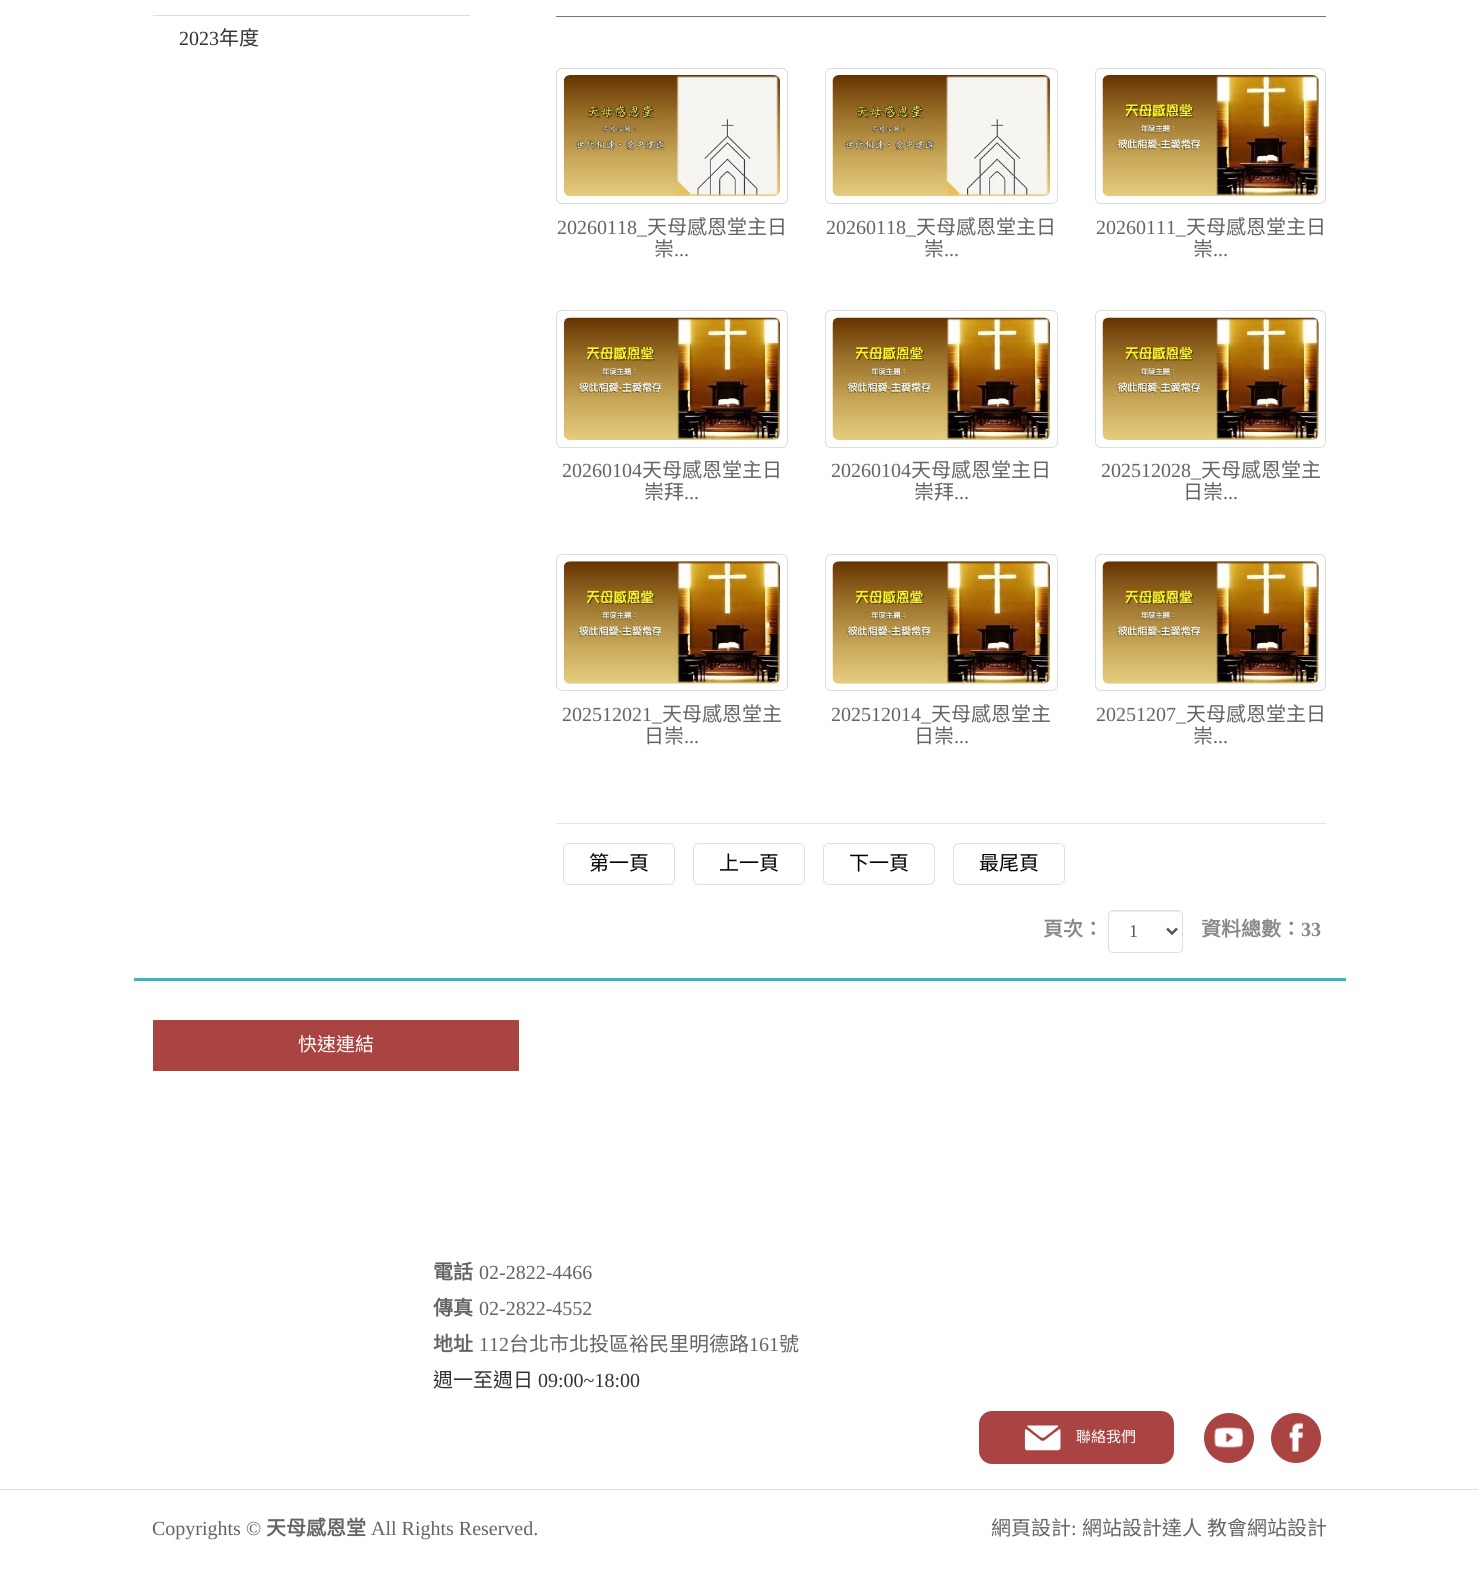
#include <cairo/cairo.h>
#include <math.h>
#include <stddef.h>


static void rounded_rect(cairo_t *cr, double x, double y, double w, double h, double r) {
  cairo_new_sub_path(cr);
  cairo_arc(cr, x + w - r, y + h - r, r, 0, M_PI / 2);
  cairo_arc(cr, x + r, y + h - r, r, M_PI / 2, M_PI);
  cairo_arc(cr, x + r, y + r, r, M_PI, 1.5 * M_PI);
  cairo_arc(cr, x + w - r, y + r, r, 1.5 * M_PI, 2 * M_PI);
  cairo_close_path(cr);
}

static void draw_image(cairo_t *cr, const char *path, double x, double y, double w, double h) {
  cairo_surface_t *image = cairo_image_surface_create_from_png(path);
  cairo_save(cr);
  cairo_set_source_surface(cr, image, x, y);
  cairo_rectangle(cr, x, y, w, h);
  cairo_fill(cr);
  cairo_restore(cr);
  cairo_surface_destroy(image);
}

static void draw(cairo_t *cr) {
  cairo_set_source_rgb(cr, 1, 1, 1);
  cairo_paint(cr);
  cairo_set_source_rgb(cr, 222 / 255.0, 222 / 255.0, 222 / 255.0);
  cairo_rectangle(cr, 153, 15, 317, 1);
  cairo_fill(cr);
  cairo_set_source_rgb(cr, 117 / 255.0, 117 / 255.0, 117 / 255.0);
  cairo_rectangle(cr, 556, 16, 770, 1);
  cairo_fill(cr);
  rounded_rect(cr, 556.5, 68.5, 231, 135, 5.5);
  cairo_set_source_rgb(cr, 221 / 255.0, 221 / 255.0, 221 / 255.0);
  cairo_set_line_width(cr, 1);
  cairo_stroke(cr);
  draw_image(cr, "images/1.png", 563, 75, 217, 122);
  rounded_rect(cr, 825.5, 68.5, 232, 135, 5.5);
  cairo_stroke(cr);
  draw_image(cr, "images/2.png", 832, 75, 218, 122);
  rounded_rect(cr, 1095.5, 68.5, 230, 135, 5.5);
  cairo_stroke(cr);
  draw_image(cr, "images/3.png", 1102, 75, 217, 122);
  rounded_rect(cr, 556.5, 310.5, 231, 137, 5.5);
  cairo_stroke(cr);
  draw_image(cr, "images/4.png", 563, 317, 217, 123);
  rounded_rect(cr, 825.5, 310.5, 232, 137, 5.5);
  cairo_stroke(cr);
  draw_image(cr, "images/5.png", 832, 317, 218, 123);
  rounded_rect(cr, 1095.5, 310.5, 230, 137, 5.5);
  cairo_stroke(cr);
  draw_image(cr, "images/6.png", 1102, 317, 217, 123);
  rounded_rect(cr, 556.5, 554.5, 231, 136, 5.5);
  cairo_stroke(cr);
  draw_image(cr, "images/7.png", 563, 561, 217, 123);
  rounded_rect(cr, 825.5, 554.5, 232, 136, 5.5);
  cairo_stroke(cr);
  draw_image(cr, "images/8.png", 832, 561, 218, 123);
  rounded_rect(cr, 1095.5, 554.5, 230, 136, 5.5);
  cairo_stroke(cr);
  draw_image(cr, "images/9.png", 1102, 561, 217, 123);
  cairo_set_source_rgb(cr, 229 / 255.0, 229 / 255.0, 229 / 255.0);
  cairo_rectangle(cr, 556, 823, 770, 1);
  cairo_fill(cr);
  rounded_rect(cr, 563.5, 843.5, 111, 41, 5.5);
  cairo_set_source_rgb(cr, 223 / 255.0, 223 / 255.0, 223 / 255.0);
  cairo_stroke(cr);
  rounded_rect(cr, 693.5, 843.5, 111, 41, 5.5);
  cairo_stroke(cr);
  rounded_rect(cr, 823.5, 843.5, 111, 41, 5.5);
  cairo_stroke(cr);
  rounded_rect(cr, 953.5, 843.5, 111, 41, 5.5);
  cairo_stroke(cr);
  cairo_set_source_rgb(cr, 236 / 255.0, 236 / 255.0, 236 / 255.0);
  cairo_new_path(cr);
  cairo_move_to(cr, 1112, 912);
  cairo_line_to(cr, 1178, 912);
  cairo_curve_to(cr, 1180, 912, 1181, 914, 1181, 916);
  cairo_curve_to(cr, 1181, 908, 1171, 911, 1166, 911);
  cairo_line_to(cr, 1124, 911);
  cairo_curve_to(cr, 1119, 911, 1109, 908, 1109, 916);
  cairo_curve_to(cr, 1109, 914, 1110, 912, 1112, 912);
  cairo_close_path(cr);
  cairo_fill(cr);
  rounded_rect(cr, 1108.5, 910.5, 74, 42, 4.5);
  cairo_set_source_rgb(cr, 223 / 255.0, 223 / 255.0, 223 / 255.0);
  cairo_stroke(cr);
  cairo_new_path(cr);
  cairo_move_to(cr, 1167, 928.5);
  cairo_line_to(cr, 1172, 933.5);
  cairo_line_to(cr, 1177, 928.5);
  cairo_set_source_rgb(cr, 85 / 255.0, 85 / 255.0, 85 / 255.0);
  cairo_set_line_width(cr, 2.5);
  cairo_stroke(cr);
  cairo_set_source_rgb(cr, 54 / 255.0, 185 / 255.0, 192 / 255.0);
  cairo_rectangle(cr, 134, 978, 1212, 3);
  cairo_fill(cr);
  cairo_set_source_rgb(cr, 169 / 255.0, 68 / 255.0, 66 / 255.0);
  cairo_rectangle(cr, 153, 1020, 366, 51);
  cairo_fill(cr);
  rounded_rect(cr, 979, 1411, 195, 53, 13);
  cairo_fill(cr);
  draw_image(cr, "images/10.png", 1024, 1425, 37, 26);
  cairo_arc(cr, 1229, 1438, 25, 0, 2 * M_PI);
  cairo_fill(cr);
  draw_image(cr, "images/11.png", 1214, 1427, 30, 21);
  cairo_arc(cr, 1296, 1438, 25, 0, 2 * M_PI);
  cairo_fill(cr);
  draw_image(cr, "images/12.png", 1289, 1423, 14, 29);
  cairo_set_source_rgb(cr, 225 / 255.0, 225 / 255.0, 225 / 255.0);
  cairo_rectangle(cr, 0, 1489, 1478, 1);
  cairo_fill(cr);
  cairo_select_font_face(cr, "Liberation Serif", CAIRO_FONT_SLANT_NORMAL, CAIRO_FONT_WEIGHT_NORMAL);
  cairo_set_font_size(cr, 20);
  cairo_set_source_rgb(cr, 51 / 255.0, 51 / 255.0, 51 / 255.0);
  cairo_move_to(cr, 179, 45);
  cairo_show_text(cr, "2023");
  cairo_select_font_face(cr, "Noto Sans CJK TC", CAIRO_FONT_SLANT_NORMAL, CAIRO_FONT_WEIGHT_NORMAL);
  cairo_move_to(cr, 219, 45);
  cairo_show_text(cr, "年度");
  cairo_select_font_face(cr, "Liberation Serif", CAIRO_FONT_SLANT_NORMAL, CAIRO_FONT_WEIGHT_NORMAL);
  cairo_set_source_rgb(cr, 99 / 255.0, 100 / 255.0, 100 / 255.0);
  cairo_move_to(cr, 557, 234);
  cairo_show_text(cr, "20260118_");
  cairo_select_font_face(cr, "Noto Sans CJK TC", CAIRO_FONT_SLANT_NORMAL, CAIRO_FONT_WEIGHT_NORMAL);
  cairo_move_to(cr, 647, 234);
  cairo_show_text(cr, "天母感恩堂主日");
  cairo_move_to(cr, 654, 256);
  cairo_show_text(cr, "崇");
  cairo_select_font_face(cr, "Liberation Serif", CAIRO_FONT_SLANT_NORMAL, CAIRO_FONT_WEIGHT_NORMAL);
  cairo_move_to(cr, 674, 256);
  cairo_show_text(cr, "...");
  cairo_move_to(cr, 826, 234);
  cairo_show_text(cr, "20260118_");
  cairo_select_font_face(cr, "Noto Sans CJK TC", CAIRO_FONT_SLANT_NORMAL, CAIRO_FONT_WEIGHT_NORMAL);
  cairo_move_to(cr, 916, 234);
  cairo_show_text(cr, "天母感恩堂主日");
  cairo_move_to(cr, 924, 256);
  cairo_show_text(cr, "崇");
  cairo_select_font_face(cr, "Liberation Serif", CAIRO_FONT_SLANT_NORMAL, CAIRO_FONT_WEIGHT_NORMAL);
  cairo_move_to(cr, 944, 256);
  cairo_show_text(cr, "...");
  cairo_move_to(cr, 1096, 234);
  cairo_show_text(cr, "20260111_");
  cairo_select_font_face(cr, "Noto Sans CJK TC", CAIRO_FONT_SLANT_NORMAL, CAIRO_FONT_WEIGHT_NORMAL);
  cairo_move_to(cr, 1186, 234);
  cairo_show_text(cr, "天母感恩堂主日");
  cairo_move_to(cr, 1193, 256);
  cairo_show_text(cr, "崇");
  cairo_select_font_face(cr, "Liberation Serif", CAIRO_FONT_SLANT_NORMAL, CAIRO_FONT_WEIGHT_NORMAL);
  cairo_move_to(cr, 1213, 256);
  cairo_show_text(cr, "...");
  cairo_move_to(cr, 562, 477);
  cairo_show_text(cr, "20260104");
  cairo_select_font_face(cr, "Noto Sans CJK TC", CAIRO_FONT_SLANT_NORMAL, CAIRO_FONT_WEIGHT_NORMAL);
  cairo_move_to(cr, 642, 477);
  cairo_show_text(cr, "天母感恩堂主日");
  cairo_move_to(cr, 644, 499);
  cairo_show_text(cr, "崇拜");
  cairo_select_font_face(cr, "Liberation Serif", CAIRO_FONT_SLANT_NORMAL, CAIRO_FONT_WEIGHT_NORMAL);
  cairo_move_to(cr, 684, 499);
  cairo_show_text(cr, "...");
  cairo_move_to(cr, 831, 477);
  cairo_show_text(cr, "20260104");
  cairo_select_font_face(cr, "Noto Sans CJK TC", CAIRO_FONT_SLANT_NORMAL, CAIRO_FONT_WEIGHT_NORMAL);
  cairo_move_to(cr, 911, 477);
  cairo_show_text(cr, "天母感恩堂主日");
  cairo_move_to(cr, 914, 499);
  cairo_show_text(cr, "崇拜");
  cairo_select_font_face(cr, "Liberation Serif", CAIRO_FONT_SLANT_NORMAL, CAIRO_FONT_WEIGHT_NORMAL);
  cairo_move_to(cr, 954, 499);
  cairo_show_text(cr, "...");
  cairo_move_to(cr, 1101, 477);
  cairo_show_text(cr, "202512028_");
  cairo_select_font_face(cr, "Noto Sans CJK TC", CAIRO_FONT_SLANT_NORMAL, CAIRO_FONT_WEIGHT_NORMAL);
  cairo_move_to(cr, 1201, 477);
  cairo_show_text(cr, "天母感恩堂主");
  cairo_move_to(cr, 1183, 499);
  cairo_show_text(cr, "日崇");
  cairo_select_font_face(cr, "Liberation Serif", CAIRO_FONT_SLANT_NORMAL, CAIRO_FONT_WEIGHT_NORMAL);
  cairo_move_to(cr, 1223, 499);
  cairo_show_text(cr, "...");
  cairo_move_to(cr, 562, 721);
  cairo_show_text(cr, "202512021_");
  cairo_select_font_face(cr, "Noto Sans CJK TC", CAIRO_FONT_SLANT_NORMAL, CAIRO_FONT_WEIGHT_NORMAL);
  cairo_move_to(cr, 662, 721);
  cairo_show_text(cr, "天母感恩堂主");
  cairo_move_to(cr, 644, 743);
  cairo_show_text(cr, "日崇");
  cairo_select_font_face(cr, "Liberation Serif", CAIRO_FONT_SLANT_NORMAL, CAIRO_FONT_WEIGHT_NORMAL);
  cairo_move_to(cr, 684, 743);
  cairo_show_text(cr, "...");
  cairo_move_to(cr, 831, 721);
  cairo_show_text(cr, "202512014_");
  cairo_select_font_face(cr, "Noto Sans CJK TC", CAIRO_FONT_SLANT_NORMAL, CAIRO_FONT_WEIGHT_NORMAL);
  cairo_move_to(cr, 931, 721);
  cairo_show_text(cr, "天母感恩堂主");
  cairo_move_to(cr, 914, 743);
  cairo_show_text(cr, "日崇");
  cairo_select_font_face(cr, "Liberation Serif", CAIRO_FONT_SLANT_NORMAL, CAIRO_FONT_WEIGHT_NORMAL);
  cairo_move_to(cr, 954, 743);
  cairo_show_text(cr, "...");
  cairo_move_to(cr, 1096, 721);
  cairo_show_text(cr, "20251207_");
  cairo_select_font_face(cr, "Noto Sans CJK TC", CAIRO_FONT_SLANT_NORMAL, CAIRO_FONT_WEIGHT_NORMAL);
  cairo_move_to(cr, 1186, 721);
  cairo_show_text(cr, "天母感恩堂主日");
  cairo_move_to(cr, 1193, 743);
  cairo_show_text(cr, "崇");
  cairo_select_font_face(cr, "Liberation Serif", CAIRO_FONT_SLANT_NORMAL, CAIRO_FONT_WEIGHT_NORMAL);
  cairo_move_to(cr, 1213, 743);
  cairo_show_text(cr, "...");
  cairo_select_font_face(cr, "Noto Sans CJK TC", CAIRO_FONT_SLANT_NORMAL, CAIRO_FONT_WEIGHT_NORMAL);
  cairo_set_source_rgb(cr, 0, 0, 0);
  cairo_move_to(cr, 589, 870);
  cairo_show_text(cr, "第一頁");
  cairo_move_to(cr, 719, 870);
  cairo_show_text(cr, "上一頁");
  cairo_move_to(cr, 849, 870);
  cairo_show_text(cr, "下一頁");
  cairo_move_to(cr, 979, 870);
  cairo_show_text(cr, "最尾頁");
  cairo_select_font_face(cr, "Noto Sans CJK TC", CAIRO_FONT_SLANT_NORMAL, CAIRO_FONT_WEIGHT_BOLD);
  cairo_set_source_rgb(cr, 136 / 255.0, 136 / 255.0, 136 / 255.0);
  cairo_move_to(cr, 1043, 936);
  cairo_show_text(cr, "頁次：");
  cairo_select_font_face(cr, "Liberation Serif", CAIRO_FONT_SLANT_NORMAL, CAIRO_FONT_WEIGHT_NORMAL);
  cairo_set_font_size(cr, 18);
  cairo_set_source_rgb(cr, 85 / 255.0, 85 / 255.0, 85 / 255.0);
  cairo_move_to(cr, 1129, 937);
  cairo_show_text(cr, "1");
  cairo_select_font_face(cr, "Noto Sans CJK TC", CAIRO_FONT_SLANT_NORMAL, CAIRO_FONT_WEIGHT_BOLD);
  cairo_set_font_size(cr, 20);
  cairo_set_source_rgb(cr, 136 / 255.0, 136 / 255.0, 136 / 255.0);
  cairo_move_to(cr, 1201, 936);
  cairo_show_text(cr, "資料總數：");
  cairo_select_font_face(cr, "Liberation Serif", CAIRO_FONT_SLANT_NORMAL, CAIRO_FONT_WEIGHT_BOLD);
  cairo_move_to(cr, 1301, 936);
  cairo_show_text(cr, "33");
  cairo_select_font_face(cr, "Noto Sans CJK TC", CAIRO_FONT_SLANT_NORMAL, CAIRO_FONT_WEIGHT_NORMAL);
  cairo_set_font_size(cr, 19);
  cairo_set_source_rgb(cr, 1, 1, 1);
  cairo_move_to(cr, 298, 1051);
  cairo_show_text(cr, "快速連結");
  cairo_select_font_face(cr, "Noto Sans CJK TC", CAIRO_FONT_SLANT_NORMAL, CAIRO_FONT_WEIGHT_BOLD);
  cairo_set_font_size(cr, 20);
  cairo_set_source_rgb(cr, 99 / 255.0, 100 / 255.0, 100 / 255.0);
  cairo_move_to(cr, 433, 1279);
  cairo_show_text(cr, "電話");
  cairo_select_font_face(cr, "Liberation Serif", CAIRO_FONT_SLANT_NORMAL, CAIRO_FONT_WEIGHT_NORMAL);
  cairo_move_to(cr, 479, 1279);
  cairo_show_text(cr, "02-2822-4466");
  cairo_select_font_face(cr, "Noto Sans CJK TC", CAIRO_FONT_SLANT_NORMAL, CAIRO_FONT_WEIGHT_BOLD);
  cairo_move_to(cr, 433, 1315);
  cairo_show_text(cr, "傳真");
  cairo_select_font_face(cr, "Liberation Serif", CAIRO_FONT_SLANT_NORMAL, CAIRO_FONT_WEIGHT_NORMAL);
  cairo_move_to(cr, 479, 1315);
  cairo_show_text(cr, "02-2822-4552");
  cairo_select_font_face(cr, "Noto Sans CJK TC", CAIRO_FONT_SLANT_NORMAL, CAIRO_FONT_WEIGHT_BOLD);
  cairo_move_to(cr, 433, 1351);
  cairo_show_text(cr, "地址");
  cairo_select_font_face(cr, "Liberation Serif", CAIRO_FONT_SLANT_NORMAL, CAIRO_FONT_WEIGHT_NORMAL);
  cairo_move_to(cr, 479, 1351);
  cairo_show_text(cr, "112");
  cairo_select_font_face(cr, "Noto Sans CJK TC", CAIRO_FONT_SLANT_NORMAL, CAIRO_FONT_WEIGHT_NORMAL);
  cairo_move_to(cr, 509, 1351);
  cairo_show_text(cr, "台北市北投區裕民里明德路");
  cairo_select_font_face(cr, "Liberation Serif", CAIRO_FONT_SLANT_NORMAL, CAIRO_FONT_WEIGHT_NORMAL);
  cairo_move_to(cr, 749, 1351);
  cairo_show_text(cr, "161");
  cairo_select_font_face(cr, "Noto Sans CJK TC", CAIRO_FONT_SLANT_NORMAL, CAIRO_FONT_WEIGHT_NORMAL);
  cairo_move_to(cr, 779, 1351);
  cairo_show_text(cr, "號");
  cairo_set_source_rgb(cr, 51 / 255.0, 51 / 255.0, 51 / 255.0);
  cairo_move_to(cr, 433, 1387);
  cairo_show_text(cr, "週一至週日");
  cairo_select_font_face(cr, "Liberation Serif", CAIRO_FONT_SLANT_NORMAL, CAIRO_FONT_WEIGHT_NORMAL);
  cairo_move_to(cr, 538, 1387);
  cairo_show_text(cr, "09:00~18:00");
  cairo_select_font_face(cr, "Noto Sans CJK TC", CAIRO_FONT_SLANT_NORMAL, CAIRO_FONT_WEIGHT_NORMAL);
  cairo_set_font_size(cr, 15);
  cairo_set_source_rgb(cr, 1, 1, 1);
  cairo_move_to(cr, 1076, 1442);
  cairo_show_text(cr, "聯絡我們");
  cairo_select_font_face(cr, "Liberation Serif", CAIRO_FONT_SLANT_NORMAL, CAIRO_FONT_WEIGHT_NORMAL);
  cairo_set_font_size(cr, 20);
  cairo_set_source_rgb(cr, 99 / 255.0, 100 / 255.0, 100 / 255.0);
  cairo_move_to(cr, 152, 1535);
  cairo_show_text(cr, "Copyrights ©");
  cairo_select_font_face(cr, "Noto Sans CJK TC", CAIRO_FONT_SLANT_NORMAL, CAIRO_FONT_WEIGHT_BOLD);
  cairo_move_to(cr, 266, 1535);
  cairo_show_text(cr, "天母感恩堂");
  cairo_select_font_face(cr, "Liberation Serif", CAIRO_FONT_SLANT_NORMAL, CAIRO_FONT_WEIGHT_NORMAL);
  cairo_move_to(cr, 371, 1535);
  cairo_show_text(cr, "All Rights Reserved.");
  cairo_select_font_face(cr, "Noto Sans CJK TC", CAIRO_FONT_SLANT_NORMAL, CAIRO_FONT_WEIGHT_NORMAL);
  cairo_move_to(cr, 991, 1535);
  cairo_show_text(cr, "網頁設計");
  cairo_select_font_face(cr, "Liberation Serif", CAIRO_FONT_SLANT_NORMAL, CAIRO_FONT_WEIGHT_NORMAL);
  cairo_move_to(cr, 1071, 1535);
  cairo_show_text(cr, ":");
  cairo_select_font_face(cr, "Noto Sans CJK TC", CAIRO_FONT_SLANT_NORMAL, CAIRO_FONT_WEIGHT_NORMAL);
  cairo_move_to(cr, 1082, 1535);
  cairo_show_text(cr, "網站設計達人");
  cairo_move_to(cr, 1207, 1535);
  cairo_show_text(cr, "教會網站設計");
}

int main(void) {
  cairo_surface_t *surface = cairo_image_surface_create(CAIRO_FORMAT_RGB24, 1478, 1592);
  cairo_t *cr = cairo_create(surface);
  cairo_font_options_t *options = cairo_font_options_create();
  cairo_font_options_set_hint_metrics(options, CAIRO_HINT_METRICS_OFF);
  cairo_font_options_set_hint_style(options, CAIRO_HINT_STYLE_NONE);
  cairo_set_font_options(cr, options);
  cairo_set_miter_limit(cr, 4);
  draw(cr);
  cairo_surface_write_to_png(surface, "out.png");
  cairo_font_options_destroy(options);
  cairo_destroy(cr);
  cairo_surface_destroy(surface);
  return 0;
}
